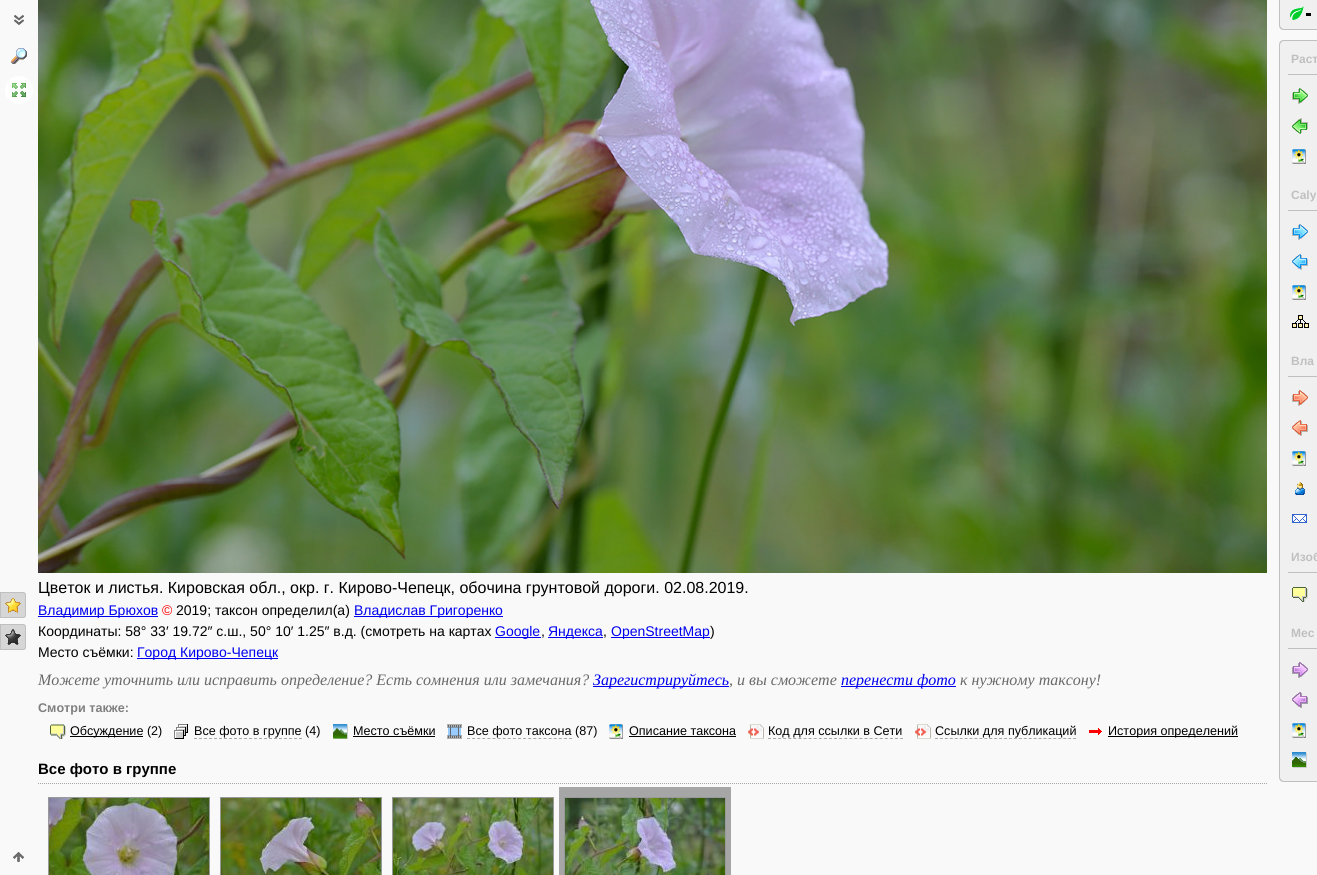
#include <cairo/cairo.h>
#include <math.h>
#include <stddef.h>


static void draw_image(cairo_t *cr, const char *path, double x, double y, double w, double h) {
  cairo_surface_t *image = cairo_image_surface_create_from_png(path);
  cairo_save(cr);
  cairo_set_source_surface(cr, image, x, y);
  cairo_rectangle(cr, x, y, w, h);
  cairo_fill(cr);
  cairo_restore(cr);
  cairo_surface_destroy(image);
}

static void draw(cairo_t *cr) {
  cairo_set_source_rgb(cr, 249 / 255.0, 249 / 255.0, 249 / 255.0);
  cairo_paint(cr);
  draw_image(cr, "images/1.png", 14, 15, 10, 10);
  draw_image(cr, "images/2.png", 11, 48, 16, 16);
  cairo_set_source_rgb(cr, 1, 1, 1);
  cairo_arc(cr, 19, 90, 14, 0, 2 * M_PI);
  cairo_fill(cr);
  draw_image(cr, "images/3.png", 12, 83, 14, 14);
  cairo_set_source_rgb(cr, 214 / 255.0, 214 / 255.0, 214 / 255.0);
  cairo_new_path(cr);
  cairo_move_to(cr, 0, 592);
  cairo_line_to(cr, 23, 592);
  cairo_curve_to(cr, 24.5, 592, 26, 593.5, 26, 595);
  cairo_line_to(cr, 26, 615);
  cairo_curve_to(cr, 26, 616.5, 24.5, 618, 23, 618);
  cairo_line_to(cr, 0, 618);
  cairo_close_path(cr);
  cairo_fill(cr);
  draw_image(cr, "images/4.png", 5, 598, 16, 15);
  cairo_new_path(cr);
  cairo_move_to(cr, 0.5, 592.5);
  cairo_line_to(cr, 23, 592.5);
  cairo_curve_to(cr, 24.5, 592.5, 25.5, 593.5, 25.5, 595);
  cairo_line_to(cr, 25.5, 615);
  cairo_curve_to(cr, 25.5, 616.5, 24.5, 617.5, 23, 617.5);
  cairo_line_to(cr, 0.5, 617.5);
  cairo_close_path(cr);
  cairo_set_source_rgb(cr, 192 / 255.0, 192 / 255.0, 192 / 255.0);
  cairo_set_line_width(cr, 1);
  cairo_stroke(cr);
  cairo_set_source_rgb(cr, 214 / 255.0, 214 / 255.0, 214 / 255.0);
  cairo_new_path(cr);
  cairo_move_to(cr, 0, 624);
  cairo_line_to(cr, 23, 624);
  cairo_curve_to(cr, 24.5, 624, 26, 625.5, 26, 627);
  cairo_line_to(cr, 26, 647);
  cairo_curve_to(cr, 26, 648.5, 24.5, 650, 23, 650);
  cairo_line_to(cr, 0, 650);
  cairo_close_path(cr);
  cairo_fill(cr);
  draw_image(cr, "images/5.png", 5, 629, 16, 16);
  cairo_new_path(cr);
  cairo_move_to(cr, 0.5, 624.5);
  cairo_line_to(cr, 23, 624.5);
  cairo_curve_to(cr, 24.5, 624.5, 25.5, 625.5, 25.5, 627);
  cairo_line_to(cr, 25.5, 647);
  cairo_curve_to(cr, 25.5, 648.5, 24.5, 649.5, 23, 649.5);
  cairo_line_to(cr, 0.5, 649.5);
  cairo_close_path(cr);
  cairo_set_source_rgb(cr, 192 / 255.0, 192 / 255.0, 192 / 255.0);
  cairo_stroke(cr);
  cairo_set_source_rgb(cr, 240 / 255.0, 240 / 255.0, 240 / 255.0);
  cairo_new_path(cr);
  cairo_move_to(cr, 1279, 0);
  cairo_line_to(cr, 1317, 0);
  cairo_line_to(cr, 1317, 30);
  cairo_line_to(cr, 1284, 30);
  cairo_curve_to(cr, 1281, 30, 1279, 28, 1279, 25);
  cairo_close_path(cr);
  cairo_fill(cr);
  draw_image(cr, "images/6.png", 1290, 6, 14, 14);
  cairo_set_source_rgb(cr, 192 / 255.0, 192 / 255.0, 192 / 255.0);
  cairo_set_fill_rule(cr, CAIRO_FILL_RULE_EVEN_ODD);
  cairo_new_path(cr);
  cairo_move_to(cr, 1279, 0);
  cairo_line_to(cr, 1317, 0);
  cairo_line_to(cr, 1317, 30);
  cairo_line_to(cr, 1284, 30);
  cairo_curve_to(cr, 1281, 30, 1279, 28, 1279, 25);
  cairo_close_path(cr);
  cairo_move_to(cr, 1280, 0);
  cairo_line_to(cr, 1317, 0);
  cairo_line_to(cr, 1317, 29);
  cairo_line_to(cr, 1284, 29);
  cairo_curve_to(cr, 1282, 29, 1280, 27, 1280, 25);
  cairo_close_path(cr);
  cairo_fill(cr);
  cairo_set_source_rgb(cr, 0, 0, 0);
  cairo_rectangle(cr, 1306, 13, 5, 3);
  cairo_fill(cr);
  cairo_set_source_rgb(cr, 240 / 255.0, 240 / 255.0, 240 / 255.0);
  cairo_new_path(cr);
  cairo_move_to(cr, 1284, 40);
  cairo_line_to(cr, 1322, 40);
  cairo_line_to(cr, 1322, 782);
  cairo_line_to(cr, 1284, 782);
  cairo_curve_to(cr, 1281, 782, 1279, 780, 1279, 777);
  cairo_line_to(cr, 1279, 45);
  cairo_curve_to(cr, 1279, 42, 1281, 40, 1284, 40);
  cairo_close_path(cr);
  cairo_fill(cr);
  cairo_set_source_rgb(cr, 192 / 255.0, 192 / 255.0, 192 / 255.0);
  cairo_new_path(cr);
  cairo_move_to(cr, 1284, 40);
  cairo_line_to(cr, 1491, 40);
  cairo_line_to(cr, 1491, 782);
  cairo_line_to(cr, 1284, 782);
  cairo_curve_to(cr, 1281, 782, 1279, 780, 1279, 777);
  cairo_line_to(cr, 1279, 45);
  cairo_curve_to(cr, 1279, 42, 1281, 40, 1284, 40);
  cairo_close_path(cr);
  cairo_move_to(cr, 1284, 41);
  cairo_line_to(cr, 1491, 41);
  cairo_line_to(cr, 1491, 781);
  cairo_line_to(cr, 1284, 781);
  cairo_curve_to(cr, 1282, 781, 1280, 779, 1280, 777);
  cairo_line_to(cr, 1280, 45);
  cairo_curve_to(cr, 1280, 43, 1282, 41, 1284, 41);
  cairo_close_path(cr);
  cairo_fill(cr);
  cairo_rectangle(cr, 1288, 74, 29, 1);
  cairo_fill(cr);
  draw_image(cr, "images/7.png", 1292, 88, 16, 16);
  draw_image(cr, "images/8.png", 1292, 118, 16, 16);
  draw_image(cr, "images/9.png", 1292, 149, 14, 15);
  cairo_rectangle(cr, 1288, 210, 29, 1);
  cairo_fill(cr);
  draw_image(cr, "images/10.png", 1292, 224, 16, 16);
  draw_image(cr, "images/11.png", 1292, 254, 16, 16);
  draw_image(cr, "images/9.png", 1292, 285, 14, 15);
  draw_image(cr, "images/12.png", 1292, 315, 17, 13);
  cairo_rectangle(cr, 1288, 376, 29, 1);
  cairo_fill(cr);
  draw_image(cr, "images/13.png", 1292, 390, 16, 16);
  draw_image(cr, "images/14.png", 1292, 420, 16, 16);
  draw_image(cr, "images/9.png", 1292, 451, 14, 15);
  draw_image(cr, "images/15.png", 1295, 482, 10, 13);
  draw_image(cr, "images/16.png", 1292, 514, 15, 9);
  cairo_rectangle(cr, 1288, 572, 29, 1);
  cairo_fill(cr);
  draw_image(cr, "images/17.png", 1292, 587, 16, 15);
  cairo_rectangle(cr, 1288, 648, 29, 1);
  cairo_fill(cr);
  draw_image(cr, "images/18.png", 1292, 662, 16, 16);
  draw_image(cr, "images/19.png", 1292, 692, 16, 16);
  draw_image(cr, "images/9.png", 1292, 723, 14, 15);
  draw_image(cr, "images/20.png", 1292, 752, 15, 16);
  draw_image(cr, "images/21.png", 38, 0, 1229, 573);
  cairo_set_source_rgb(cr, 0, 0, 238 / 255.0);
  cairo_rectangle(cr, 38, 616, 120, 1);
  cairo_fill(cr);
  cairo_rectangle(cr, 354, 616, 149, 1);
  cairo_fill(cr);
  cairo_rectangle(cr, 495, 637, 46, 1);
  cairo_fill(cr);
  cairo_rectangle(cr, 548, 637, 55, 1);
  cairo_fill(cr);
  cairo_rectangle(cr, 611, 637, 99, 1);
  cairo_fill(cr);
  cairo_rectangle(cr, 137, 658, 141, 1);
  cairo_fill(cr);
  cairo_rectangle(cr, 593, 686, 136, 1);
  cairo_fill(cr);
  cairo_rectangle(cr, 841, 686, 115, 1);
  cairo_fill(cr);
  draw_image(cr, "images/22.png", 50, 724, 16, 15);
  cairo_set_source_rgb(cr, 0, 0, 0);
  cairo_rectangle(cr, 70, 736, 73, 1);
  cairo_fill(cr);
  draw_image(cr, "images/23.png", 174, 724, 14, 15);
  cairo_new_path(cr);
  cairo_move_to(cr, 194, 738.5);
  cairo_line_to(cr, 302, 738.5);
  cairo_set_source_rgb(cr, 169 / 255.0, 169 / 255.0, 169 / 255.0);
  cairo_set_dash(cr, (double[]){3, 2}, 2, 0);
  cairo_stroke(cr);
  draw_image(cr, "images/24.png", 333, 724, 15, 15);
  cairo_set_source_rgb(cr, 0, 0, 0);
  cairo_rectangle(cr, 353, 736, 82, 1);
  cairo_fill(cr);
  draw_image(cr, "images/25.png", 447, 724, 15, 15);
  cairo_new_path(cr);
  cairo_move_to(cr, 467, 738.5);
  cairo_line_to(cr, 572, 738.5);
  cairo_set_source_rgb(cr, 169 / 255.0, 169 / 255.0, 169 / 255.0);
  cairo_set_dash(cr, (double[]){3, 2.1}, 2, 0);
  cairo_stroke(cr);
  draw_image(cr, "images/9.png", 609, 724, 14, 15);
  cairo_set_source_rgb(cr, 0, 0, 0);
  cairo_rectangle(cr, 629, 736, 107, 1);
  cairo_fill(cr);
  draw_image(cr, "images/26.png", 748, 724, 16, 15);
  cairo_new_path(cr);
  cairo_move_to(cr, 768, 738.5);
  cairo_line_to(cr, 903, 738.5);
  cairo_set_source_rgb(cr, 169 / 255.0, 169 / 255.0, 169 / 255.0);
  cairo_set_dash(cr, (double[]){3, 2.08}, 2, 0);
  cairo_stroke(cr);
  draw_image(cr, "images/26.png", 915, 724, 16, 15);
  cairo_new_path(cr);
  cairo_move_to(cr, 935, 738.5);
  cairo_line_to(cr, 1076, 738.5);
  cairo_set_dash(cr, (double[]){3, 1.93}, 2, 0);
  cairo_stroke(cr);
  draw_image(cr, "images/27.png", 1089, 728, 13, 7);
  cairo_set_source_rgb(cr, 0, 0, 0);
  cairo_rectangle(cr, 1108, 736, 130, 1);
  cairo_fill(cr);
  cairo_new_path(cr);
  cairo_move_to(cr, 38, 783.5);
  cairo_line_to(cr, 1267, 783.5);
  cairo_set_source_rgb(cr, 166 / 255.0, 166 / 255.0, 166 / 255.0);
  cairo_set_dash(cr, (double[]){1, 1}, 2, 0);
  cairo_stroke(cr);
  cairo_rectangle(cr, 48.5, 797.5, 161, 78);
  cairo_set_source_rgb(cr, 153 / 255.0, 153 / 255.0, 153 / 255.0);
  cairo_set_dash(cr, NULL, 0, 0);
  cairo_stroke(cr);
  draw_image(cr, "images/28.png", 49, 798, 160, 77);
  cairo_rectangle(cr, 220.5, 797.5, 161, 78);
  cairo_stroke(cr);
  draw_image(cr, "images/29.png", 221, 798, 160, 77);
  cairo_rectangle(cr, 392.5, 797.5, 161, 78);
  cairo_stroke(cr);
  draw_image(cr, "images/30.png", 393, 798, 160, 77);
  cairo_set_source_rgb(cr, 166 / 255.0, 166 / 255.0, 166 / 255.0);
  cairo_rectangle(cr, 559, 787, 172, 88);
  cairo_fill(cr);
  cairo_rectangle(cr, 564.5, 797.5, 161, 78);
  cairo_set_source_rgb(cr, 153 / 255.0, 153 / 255.0, 153 / 255.0);
  cairo_stroke(cr);
  draw_image(cr, "images/31.png", 565, 798, 160, 77);
  draw_image(cr, "images/32.png", 13, 852, 11, 10);
  cairo_select_font_face(cr, "Liberation Sans", CAIRO_FONT_SLANT_NORMAL, CAIRO_FONT_WEIGHT_BOLD);
  cairo_set_font_size(cr, 12);
  cairo_set_source_rgb(cr, 192 / 255.0, 192 / 255.0, 192 / 255.0);
  cairo_move_to(cr, 1291, 63);
  cairo_show_text(cr, "Раст");
  cairo_move_to(cr, 1291, 199);
  cairo_show_text(cr, "Caly");
  cairo_move_to(cr, 1291, 365);
  cairo_show_text(cr, "Вла");
  cairo_move_to(cr, 1291, 561);
  cairo_show_text(cr, "Изоб");
  cairo_move_to(cr, 1291, 637);
  cairo_show_text(cr, "Мес");
  cairo_select_font_face(cr, "Liberation Sans", CAIRO_FONT_SLANT_NORMAL, CAIRO_FONT_WEIGHT_NORMAL);
  cairo_set_font_size(cr, 16);
  cairo_set_source_rgb(cr, 0, 0, 0);
  cairo_move_to(cr, 38, 593);
  cairo_show_text(cr, "Цветок и листья. Кировская обл., окр. г. Кирово-Чепецк, обочина грунтовой дороги. 02.08.2019.");
  cairo_set_font_size(cr, 14);
  cairo_set_source_rgb(cr, 0, 0, 238 / 255.0);
  cairo_move_to(cr, 38, 615);
  cairo_show_text(cr, "Владимир Брюхов");
  cairo_set_source_rgb(cr, 1, 0, 0);
  cairo_move_to(cr, 162, 615);
  cairo_show_text(cr, "©");
  cairo_set_source_rgb(cr, 0, 0, 0);
  cairo_move_to(cr, 176, 615);
  cairo_show_text(cr, "2019; таксон определил(а)");
  cairo_set_source_rgb(cr, 0, 0, 238 / 255.0);
  cairo_move_to(cr, 354, 615);
  cairo_show_text(cr, "Владислав Григоренко");
  cairo_set_source_rgb(cr, 0, 0, 0);
  cairo_move_to(cr, 38, 636);
  cairo_show_text(cr, "Координаты: 58° 33′ 19.72″ с.ш., 50° 10′ 1.25″ в.д. (смотреть на картах");
  cairo_set_source_rgb(cr, 0, 0, 238 / 255.0);
  cairo_move_to(cr, 495, 636);
  cairo_show_text(cr, "Google");
  cairo_set_source_rgb(cr, 0, 0, 0);
  cairo_move_to(cr, 541, 636);
  cairo_show_text(cr, ",");
  cairo_set_source_rgb(cr, 0, 0, 238 / 255.0);
  cairo_move_to(cr, 548, 636);
  cairo_show_text(cr, "Яндекса");
  cairo_set_source_rgb(cr, 0, 0, 0);
  cairo_move_to(cr, 603, 636);
  cairo_show_text(cr, ",");
  cairo_set_source_rgb(cr, 0, 0, 238 / 255.0);
  cairo_move_to(cr, 611, 636);
  cairo_show_text(cr, "OpenStreetMap");
  cairo_set_source_rgb(cr, 0, 0, 0);
  cairo_move_to(cr, 710, 636);
  cairo_show_text(cr, ")");
  cairo_move_to(cr, 38, 657);
  cairo_show_text(cr, "Место съёмки:");
  cairo_set_source_rgb(cr, 0, 0, 238 / 255.0);
  cairo_move_to(cr, 137, 657);
  cairo_show_text(cr, "Город Кирово-Чепецк");
  cairo_select_font_face(cr, "Liberation Serif", CAIRO_FONT_SLANT_ITALIC, CAIRO_FONT_WEIGHT_NORMAL);
  cairo_set_font_size(cr, 16);
  cairo_set_source_rgb(cr, 105 / 255.0, 105 / 255.0, 105 / 255.0);
  cairo_move_to(cr, 38, 685);
  cairo_show_text(cr, "Можете уточнить или исправить определение? Есть сомнения или замечания?");
  cairo_set_source_rgb(cr, 0, 0, 238 / 255.0);
  cairo_move_to(cr, 593, 685);
  cairo_show_text(cr, "Зарегистрируйтесь");
  cairo_set_source_rgb(cr, 105 / 255.0, 105 / 255.0, 105 / 255.0);
  cairo_move_to(cr, 729, 685);
  cairo_show_text(cr, ", и вы сможете");
  cairo_set_source_rgb(cr, 0, 0, 238 / 255.0);
  cairo_move_to(cr, 841, 685);
  cairo_show_text(cr, "перенести фото");
  cairo_set_source_rgb(cr, 105 / 255.0, 105 / 255.0, 105 / 255.0);
  cairo_move_to(cr, 960, 685);
  cairo_show_text(cr, "к нужному таксону!");
  cairo_select_font_face(cr, "Liberation Sans", CAIRO_FONT_SLANT_NORMAL, CAIRO_FONT_WEIGHT_BOLD);
  cairo_set_font_size(cr, 12.6);
  cairo_set_source_rgb(cr, 128 / 255.0, 128 / 255.0, 128 / 255.0);
  cairo_move_to(cr, 38, 712);
  cairo_show_text(cr, "Смотри также:");
  cairo_select_font_face(cr, "Liberation Sans", CAIRO_FONT_SLANT_NORMAL, CAIRO_FONT_WEIGHT_NORMAL);
  cairo_set_source_rgb(cr, 0, 0, 0);
  cairo_move_to(cr, 70, 735);
  cairo_show_text(cr, "Обсуждение (2)");
  cairo_move_to(cr, 194, 735);
  cairo_show_text(cr, "Все фото в группе (4)");
  cairo_move_to(cr, 353, 735);
  cairo_show_text(cr, "Место съёмки");
  cairo_move_to(cr, 467, 735);
  cairo_show_text(cr, "Все фото таксона (87)");
  cairo_move_to(cr, 629, 735);
  cairo_show_text(cr, "Описание таксона");
  cairo_move_to(cr, 768, 735);
  cairo_show_text(cr, "Код для ссылки в Сети");
  cairo_move_to(cr, 935, 735);
  cairo_show_text(cr, "Ссылки для публикаций");
  cairo_move_to(cr, 1108, 735);
  cairo_show_text(cr, "История определений");
  cairo_select_font_face(cr, "Liberation Sans", CAIRO_FONT_SLANT_NORMAL, CAIRO_FONT_WEIGHT_BOLD);
  cairo_set_font_size(cr, 15);
  cairo_move_to(cr, 38, 774);
  cairo_show_text(cr, "Все фото в группе");
}

int main(void) {
  cairo_surface_t *surface = cairo_image_surface_create(CAIRO_FORMAT_RGB24, 1317, 875);
  cairo_t *cr = cairo_create(surface);
  cairo_font_options_t *options = cairo_font_options_create();
  cairo_font_options_set_hint_metrics(options, CAIRO_HINT_METRICS_OFF);
  cairo_font_options_set_hint_style(options, CAIRO_HINT_STYLE_NONE);
  cairo_set_font_options(cr, options);
  cairo_set_miter_limit(cr, 4);
  draw(cr);
  cairo_surface_write_to_png(surface, "out.png");
  cairo_font_options_destroy(options);
  cairo_destroy(cr);
  cairo_surface_destroy(surface);
  return 0;
}
